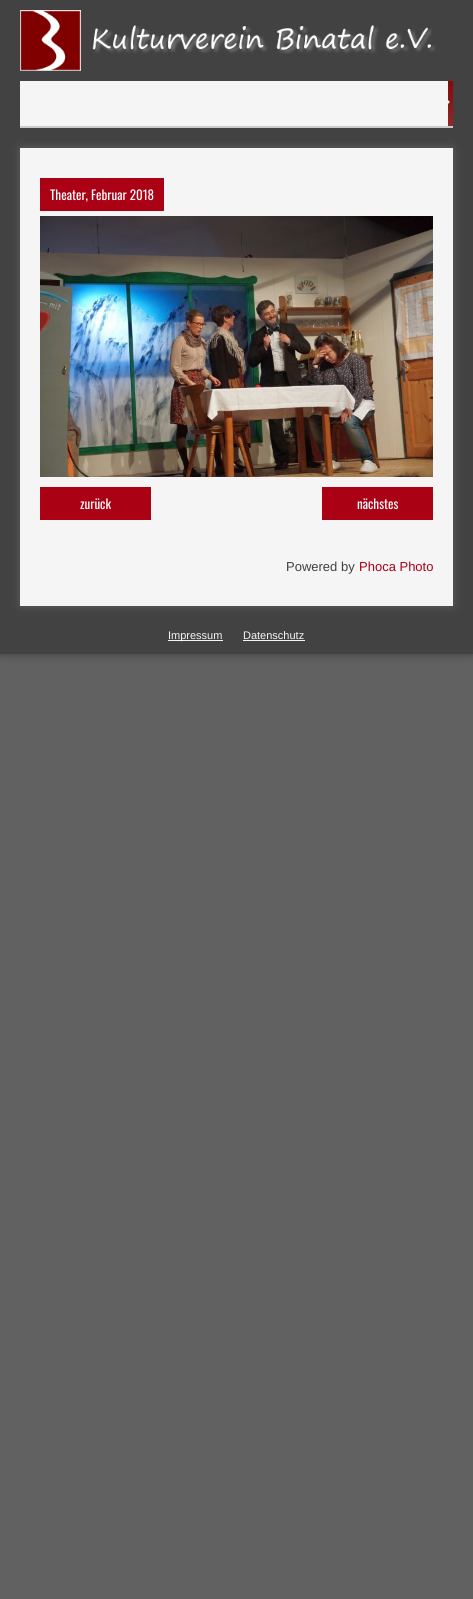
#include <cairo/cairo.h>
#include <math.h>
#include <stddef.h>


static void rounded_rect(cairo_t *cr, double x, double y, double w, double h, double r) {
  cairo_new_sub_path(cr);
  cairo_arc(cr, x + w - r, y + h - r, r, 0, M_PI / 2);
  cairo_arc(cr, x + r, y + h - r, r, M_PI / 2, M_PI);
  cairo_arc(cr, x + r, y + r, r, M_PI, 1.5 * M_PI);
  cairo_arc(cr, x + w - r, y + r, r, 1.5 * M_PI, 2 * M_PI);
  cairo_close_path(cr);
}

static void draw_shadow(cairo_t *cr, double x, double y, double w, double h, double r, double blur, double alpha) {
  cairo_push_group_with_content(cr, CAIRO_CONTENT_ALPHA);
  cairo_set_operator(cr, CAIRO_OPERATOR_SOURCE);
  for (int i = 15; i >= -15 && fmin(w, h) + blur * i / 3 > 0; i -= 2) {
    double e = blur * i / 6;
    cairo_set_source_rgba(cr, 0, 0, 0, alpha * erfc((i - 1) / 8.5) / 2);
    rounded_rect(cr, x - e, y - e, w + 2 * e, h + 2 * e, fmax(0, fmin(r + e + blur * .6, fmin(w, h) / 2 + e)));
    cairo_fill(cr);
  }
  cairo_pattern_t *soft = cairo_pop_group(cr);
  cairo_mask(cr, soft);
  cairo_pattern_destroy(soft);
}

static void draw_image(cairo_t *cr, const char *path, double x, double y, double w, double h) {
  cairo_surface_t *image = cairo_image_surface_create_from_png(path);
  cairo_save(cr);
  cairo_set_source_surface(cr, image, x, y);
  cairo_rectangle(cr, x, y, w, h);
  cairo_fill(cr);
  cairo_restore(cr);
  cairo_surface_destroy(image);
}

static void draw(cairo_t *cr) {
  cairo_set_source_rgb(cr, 97 / 255.0, 97 / 255.0, 97 / 255.0);
  cairo_paint(cr);
  cairo_set_source_rgb(cr, 0, 0, 0);
  draw_shadow(cr, 1, 1, 471, 652, 0, 5, 0.46);
  cairo_set_source_rgb(cr, 66 / 255.0, 66 / 255.0, 66 / 255.0);
  cairo_rectangle(cr, 0, 0, 473, 654);
  cairo_fill(cr);
  draw_image(cr, "images/1.png", 20, 10, 416, 61);
  cairo_set_source_rgb(cr, 204 / 255.0, 204 / 255.0, 204 / 255.0);
  cairo_rectangle(cr, 20, 126, 433, 2);
  cairo_fill(cr);
  cairo_set_source_rgb(cr, 245 / 255.0, 245 / 255.0, 245 / 255.0);
  cairo_rectangle(cr, 20, 81, 428, 45);
  cairo_fill(cr);
  draw_image(cr, "images/2.png", 448, 81, 5, 45);
  cairo_new_path(cr);
  cairo_move_to(cr, 441, 101.5);
  cairo_line_to(cr, 445, 105.5);
  cairo_line_to(cr, 449, 101.5);
  cairo_stroke(cr);
  cairo_set_source_rgb(cr, 102 / 255.0, 102 / 255.0, 102 / 255.0);
  draw_shadow(cr, 21, 149, 431, 456, 0, 5, 1);
  cairo_set_source_rgb(cr, 245 / 255.0, 245 / 255.0, 245 / 255.0);
  cairo_rectangle(cr, 20, 148, 433, 458);
  cairo_fill(cr);
  cairo_set_source_rgb(cr, 170 / 255.0, 1 / 255.0, 20 / 255.0);
  cairo_rectangle(cr, 40, 178, 124, 33);
  cairo_fill(cr);
  draw_image(cr, "images/3.png", 40, 216, 393, 261);
  cairo_rectangle(cr, 40, 487, 111, 33);
  cairo_fill(cr);
  cairo_rectangle(cr, 322, 487, 111, 33);
  cairo_fill(cr);
  cairo_set_source_rgb(cr, 245 / 255.0, 245 / 255.0, 245 / 255.0);
  cairo_rectangle(cr, 168, 640, 55, 1);
  cairo_fill(cr);
  cairo_rectangle(cr, 243, 640, 62, 1);
  cairo_fill(cr);
  cairo_select_font_face(cr, "Oswald", CAIRO_FONT_SLANT_NORMAL, CAIRO_FONT_WEIGHT_NORMAL);
  cairo_set_font_size(cr, 13);
  cairo_set_source_rgb(cr, 1, 1, 1);
  cairo_move_to(cr, 50, 200);
  cairo_show_text(cr, "Theater, Februar 2018");
  cairo_move_to(cr, 80, 509);
  cairo_show_text(cr, "zurück");
  cairo_move_to(cr, 357, 509);
  cairo_show_text(cr, "nächstes");
  cairo_select_font_face(cr, "Liberation Sans", CAIRO_FONT_SLANT_NORMAL, CAIRO_FONT_WEIGHT_NORMAL);
  cairo_set_source_rgb(cr, 64 / 255.0, 64 / 255.0, 64 / 255.0);
  cairo_move_to(cr, 286, 571);
  cairo_show_text(cr, "Powered by");
  cairo_set_source_rgb(cr, 170 / 255.0, 1 / 255.0, 20 / 255.0);
  cairo_move_to(cr, 359, 571);
  cairo_show_text(cr, "Phoca Photo");
  cairo_set_font_size(cr, 11);
  cairo_set_source_rgb(cr, 245 / 255.0, 245 / 255.0, 245 / 255.0);
  cairo_move_to(cr, 168, 639);
  cairo_show_text(cr, "Impressum");
  cairo_move_to(cr, 243, 639);
  cairo_show_text(cr, "Datenschutz");
}

int main(void) {
  cairo_surface_t *surface = cairo_image_surface_create(CAIRO_FORMAT_RGB24, 473, 1599);
  cairo_t *cr = cairo_create(surface);
  cairo_font_options_t *options = cairo_font_options_create();
  cairo_font_options_set_hint_metrics(options, CAIRO_HINT_METRICS_OFF);
  cairo_font_options_set_hint_style(options, CAIRO_HINT_STYLE_NONE);
  cairo_set_font_options(cr, options);
  cairo_set_miter_limit(cr, 4);
  draw(cr);
  cairo_surface_write_to_png(surface, "out.png");
  cairo_font_options_destroy(options);
  cairo_destroy(cr);
  cairo_surface_destroy(surface);
  return 0;
}
